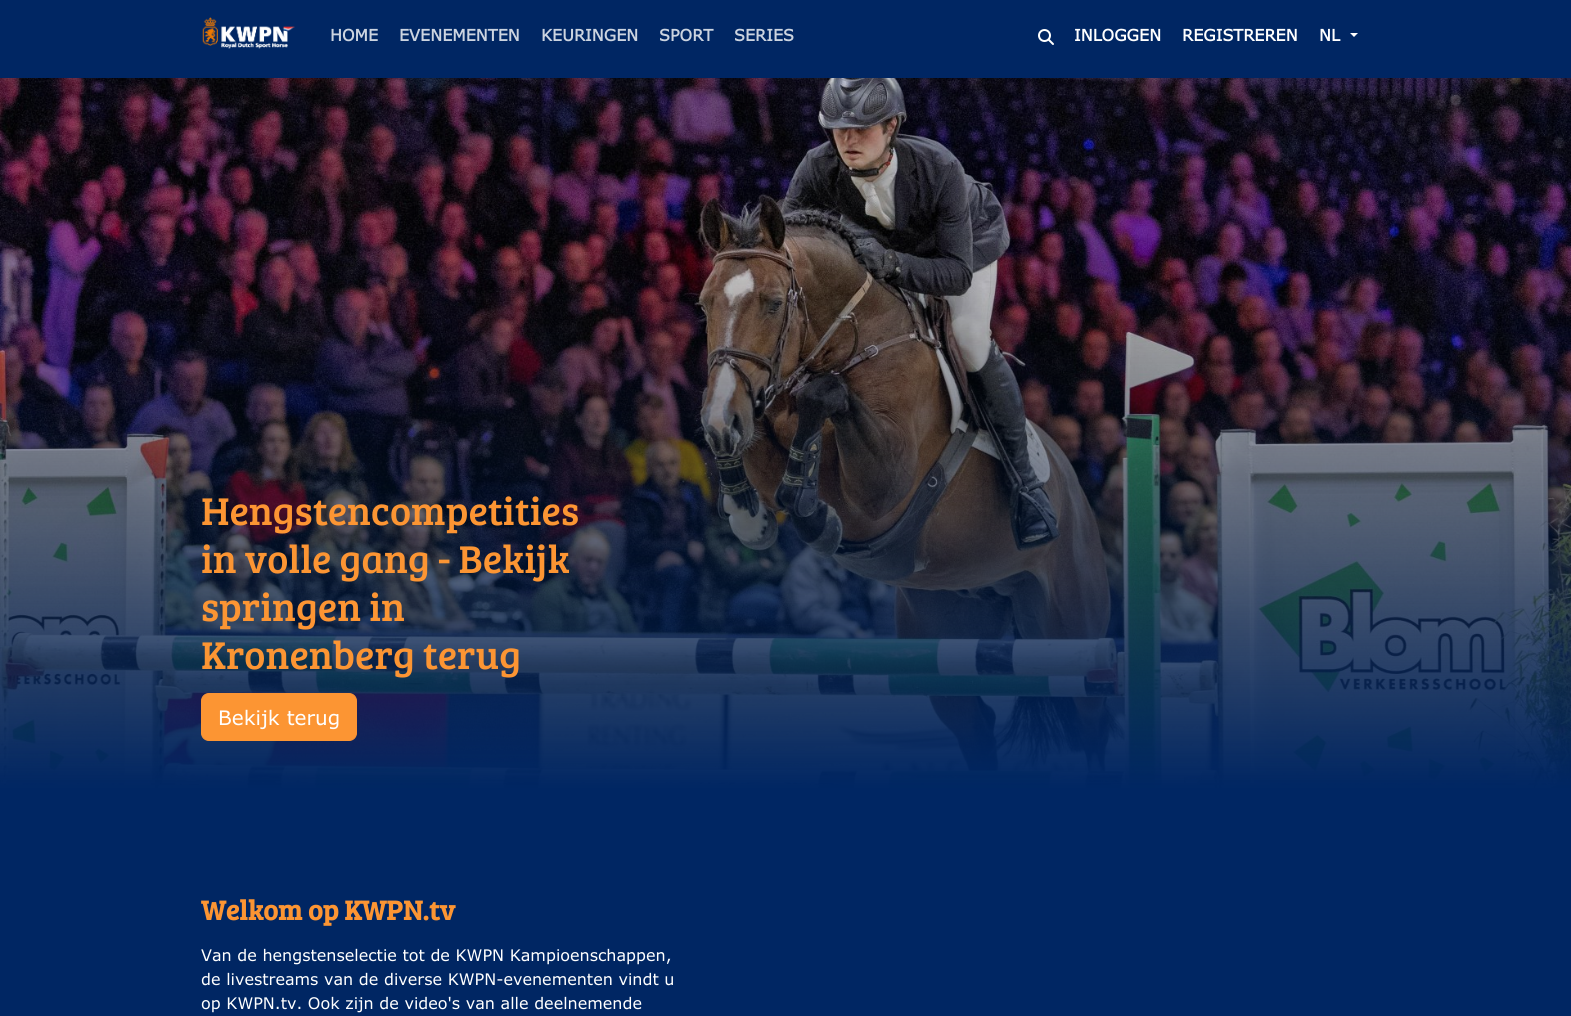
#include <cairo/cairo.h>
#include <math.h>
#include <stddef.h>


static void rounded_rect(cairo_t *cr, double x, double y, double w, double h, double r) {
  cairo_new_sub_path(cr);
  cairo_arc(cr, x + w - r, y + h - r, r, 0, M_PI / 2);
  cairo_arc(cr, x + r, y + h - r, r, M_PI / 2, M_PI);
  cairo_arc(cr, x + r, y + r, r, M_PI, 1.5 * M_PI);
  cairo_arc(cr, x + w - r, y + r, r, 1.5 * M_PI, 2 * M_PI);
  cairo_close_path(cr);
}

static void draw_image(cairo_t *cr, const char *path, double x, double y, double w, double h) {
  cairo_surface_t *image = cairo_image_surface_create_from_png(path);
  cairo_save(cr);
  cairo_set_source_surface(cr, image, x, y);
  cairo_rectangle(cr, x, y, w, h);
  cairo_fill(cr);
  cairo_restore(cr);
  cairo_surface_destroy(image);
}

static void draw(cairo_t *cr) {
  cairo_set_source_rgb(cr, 0, 38 / 255.0, 99 / 255.0);
  cairo_paint(cr);
  draw_image(cr, "images/1.png", 202, 17, 93, 32);
  draw_image(cr, "images/2.png", 1038, 29, 16, 16);
  cairo_set_source_rgb(cr, 1, 1, 1);
  cairo_new_path(cr);
  cairo_move_to(cr, 1350, 33);
  cairo_line_to(cr, 1358, 33);
  cairo_line_to(cr, 1354, 37);
  cairo_close_path(cr);
  cairo_fill(cr);
  draw_image(cr, "images/3.png", 0, 78, 1571, 711);
  cairo_set_source_rgb(cr, 252 / 255.0, 149 / 255.0, 51 / 255.0);
  rounded_rect(cr, 201.5, 693.5, 155, 47, 7.5);
  cairo_fill_preserve(cr);
  cairo_set_line_width(cr, 1);
  cairo_stroke(cr);
  cairo_select_font_face(cr, "Verdana", CAIRO_FONT_SLANT_NORMAL, CAIRO_FONT_WEIGHT_BOLD);
  cairo_set_font_size(cr, 16);
  cairo_set_source_rgb(cr, 204 / 255.0, 212 / 255.0, 224 / 255.0);
  cairo_move_to(cr, 330, 41);
  cairo_show_text(cr, "HOME");
  cairo_move_to(cr, 399, 41);
  cairo_show_text(cr, "EVENEMENTEN");
  cairo_move_to(cr, 541, 41);
  cairo_show_text(cr, "KEURINGEN");
  cairo_move_to(cr, 659, 41);
  cairo_show_text(cr, "SPORT");
  cairo_move_to(cr, 734, 41);
  cairo_show_text(cr, "SERIES");
  cairo_set_source_rgb(cr, 1, 1, 1);
  cairo_move_to(cr, 1074, 41);
  cairo_show_text(cr, "INLOGGEN");
  cairo_move_to(cr, 1182, 41);
  cairo_show_text(cr, "REGISTREREN");
  cairo_move_to(cr, 1319, 41);
  cairo_show_text(cr, "NL");
  cairo_select_font_face(cr, "Bree Serif", CAIRO_FONT_SLANT_NORMAL, CAIRO_FONT_WEIGHT_NORMAL);
  cairo_set_font_size(cr, 40);
  cairo_set_source_rgb(cr, 252 / 255.0, 149 / 255.0, 51 / 255.0);
  cairo_move_to(cr, 201, 525);
  cairo_show_text(cr, "Hengstencompetities");
  cairo_move_to(cr, 201, 573);
  cairo_show_text(cr, "in volle gang - Bekijk");
  cairo_move_to(cr, 201, 621);
  cairo_show_text(cr, "springen in");
  cairo_move_to(cr, 201, 669);
  cairo_show_text(cr, "Kronenberg terug");
  cairo_select_font_face(cr, "Verdana", CAIRO_FONT_SLANT_NORMAL, CAIRO_FONT_WEIGHT_NORMAL);
  cairo_set_font_size(cr, 20);
  cairo_set_source_rgb(cr, 1, 1, 1);
  cairo_move_to(cr, 218, 725);
  cairo_show_text(cr, "Bekijk terug");
  cairo_select_font_face(cr, "Bree Serif", CAIRO_FONT_SLANT_NORMAL, CAIRO_FONT_WEIGHT_BOLD);
  cairo_set_font_size(cr, 28);
  cairo_set_source_rgb(cr, 252 / 255.0, 149 / 255.0, 51 / 255.0);
  cairo_move_to(cr, 201, 920);
  cairo_show_text(cr, "Welkom op KWPN.tv");
  cairo_select_font_face(cr, "Verdana", CAIRO_FONT_SLANT_NORMAL, CAIRO_FONT_WEIGHT_NORMAL);
  cairo_set_font_size(cr, 16);
  cairo_set_source_rgb(cr, 1, 1, 1);
  cairo_move_to(cr, 201, 961);
  cairo_show_text(cr, "Van de hengstenselectie tot de KWPN Kampioenschappen,");
  cairo_move_to(cr, 201, 985);
  cairo_show_text(cr, "de livestreams van de diverse KWPN-evenementen vindt u");
  cairo_move_to(cr, 201, 1009);
  cairo_show_text(cr, "op KWPN.tv. Ook zijn de video's van alle deelnemende");
}

int main(void) {
  cairo_surface_t *surface = cairo_image_surface_create(CAIRO_FORMAT_RGB24, 1571, 1016);
  cairo_t *cr = cairo_create(surface);
  cairo_font_options_t *options = cairo_font_options_create();
  cairo_font_options_set_hint_metrics(options, CAIRO_HINT_METRICS_OFF);
  cairo_font_options_set_hint_style(options, CAIRO_HINT_STYLE_NONE);
  cairo_set_font_options(cr, options);
  cairo_set_miter_limit(cr, 4);
  draw(cr);
  cairo_surface_write_to_png(surface, "out.png");
  cairo_font_options_destroy(options);
  cairo_destroy(cr);
  cairo_surface_destroy(surface);
  return 0;
}
